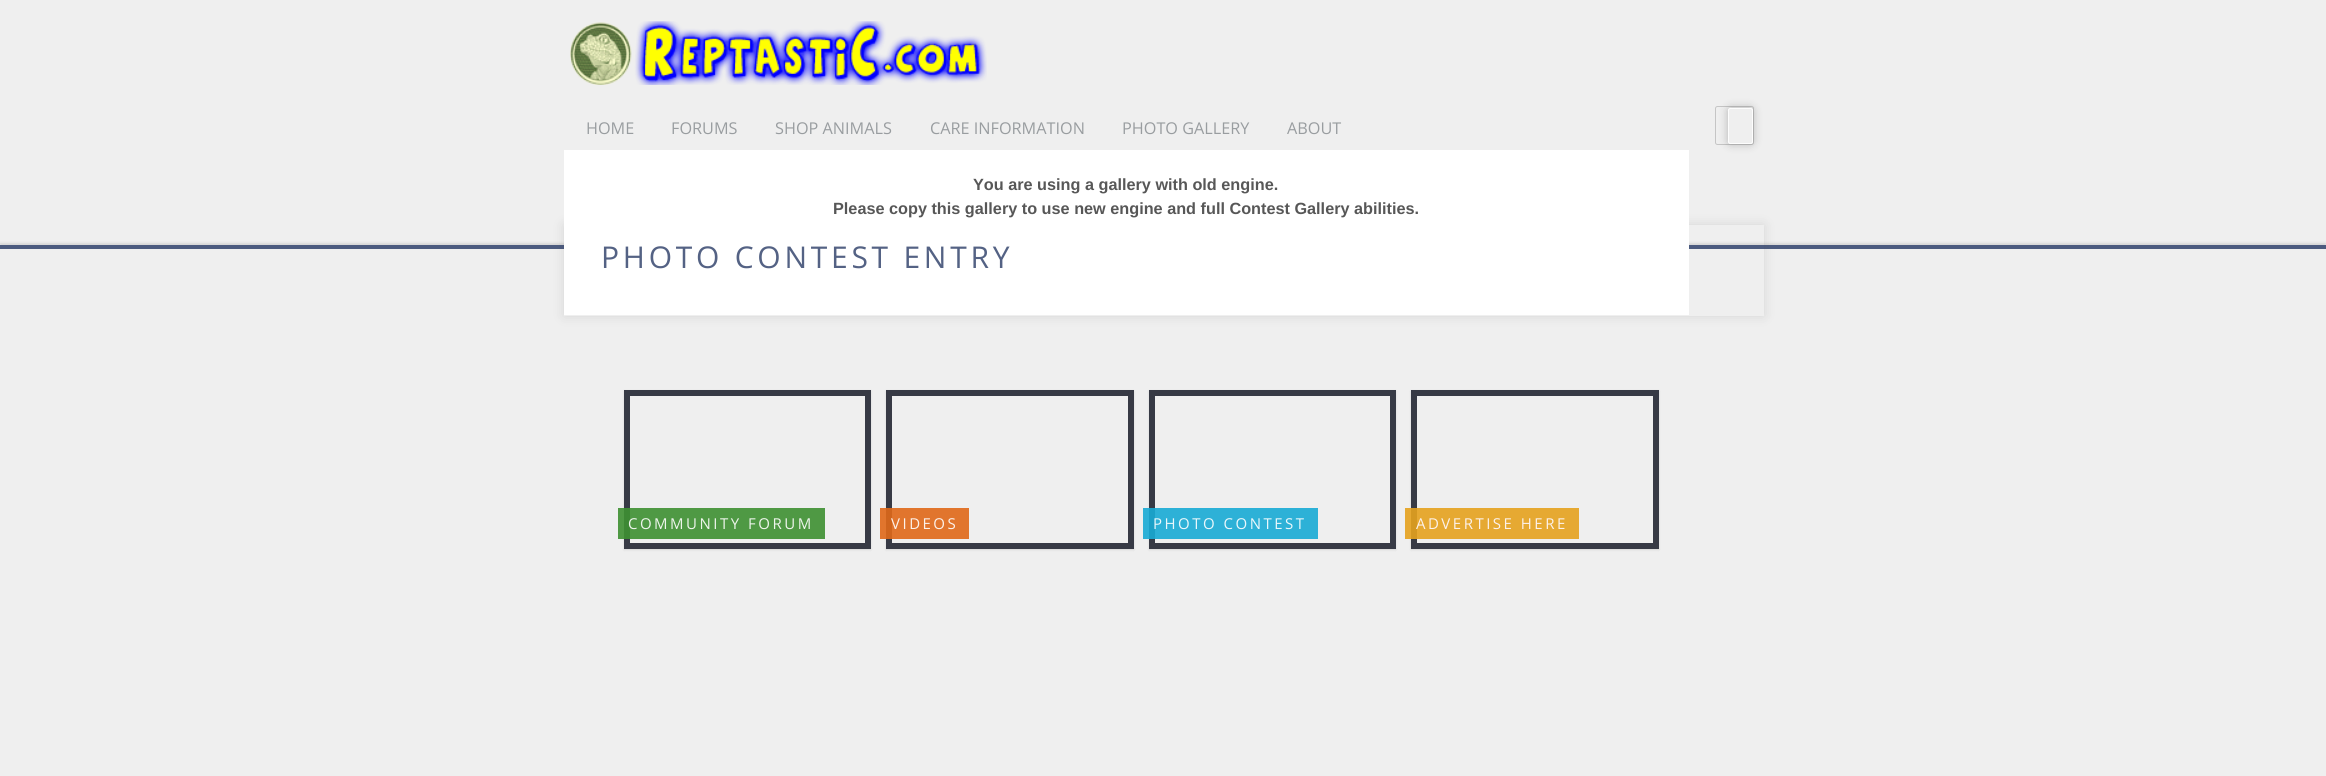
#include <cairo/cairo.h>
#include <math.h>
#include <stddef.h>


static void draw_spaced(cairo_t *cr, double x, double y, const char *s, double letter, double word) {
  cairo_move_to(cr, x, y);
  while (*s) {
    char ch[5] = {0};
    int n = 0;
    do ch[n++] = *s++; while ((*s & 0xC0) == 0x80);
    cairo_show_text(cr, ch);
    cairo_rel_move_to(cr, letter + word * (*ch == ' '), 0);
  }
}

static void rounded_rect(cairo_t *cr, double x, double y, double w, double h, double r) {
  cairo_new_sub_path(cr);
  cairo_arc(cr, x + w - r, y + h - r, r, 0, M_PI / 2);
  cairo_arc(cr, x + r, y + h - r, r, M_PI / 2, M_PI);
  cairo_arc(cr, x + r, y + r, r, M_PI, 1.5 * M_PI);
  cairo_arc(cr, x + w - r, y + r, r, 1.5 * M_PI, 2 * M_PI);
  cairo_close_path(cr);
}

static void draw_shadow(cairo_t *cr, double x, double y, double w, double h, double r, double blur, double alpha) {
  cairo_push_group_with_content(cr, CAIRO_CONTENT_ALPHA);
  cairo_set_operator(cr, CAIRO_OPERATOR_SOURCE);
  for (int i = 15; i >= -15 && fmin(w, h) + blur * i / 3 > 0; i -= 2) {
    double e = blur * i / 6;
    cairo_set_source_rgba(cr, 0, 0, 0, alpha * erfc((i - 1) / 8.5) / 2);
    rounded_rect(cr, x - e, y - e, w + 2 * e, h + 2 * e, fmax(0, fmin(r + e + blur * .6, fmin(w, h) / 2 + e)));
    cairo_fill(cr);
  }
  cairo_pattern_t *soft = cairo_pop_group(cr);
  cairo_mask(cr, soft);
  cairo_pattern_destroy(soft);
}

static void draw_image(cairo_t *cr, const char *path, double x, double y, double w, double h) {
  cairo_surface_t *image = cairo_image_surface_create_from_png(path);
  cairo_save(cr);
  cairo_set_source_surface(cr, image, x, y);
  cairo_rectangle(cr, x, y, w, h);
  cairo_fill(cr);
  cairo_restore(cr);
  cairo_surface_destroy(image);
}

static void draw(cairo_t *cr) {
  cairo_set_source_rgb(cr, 239 / 255.0, 239 / 255.0, 239 / 255.0);
  cairo_paint(cr);
  draw_image(cr, "images/1.png", 570, 21, 417, 64);
  rounded_rect(cr, 1715.5, 106.5, 38, 38, 2);
  cairo_set_source_rgb(cr, 197 / 255.0, 197 / 255.0, 197 / 255.0);
  cairo_set_line_width(cr, 1);
  cairo_stroke(cr);
  cairo_save(cr);
  cairo_set_fill_rule(cr, CAIRO_FILL_RULE_EVEN_ODD);
  cairo_new_path(cr);
  cairo_move_to(cr, 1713, 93);
  cairo_line_to(cr, 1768, 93);
  cairo_line_to(cr, 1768, 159);
  cairo_line_to(cr, 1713, 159);
  cairo_close_path(cr);
  cairo_move_to(cr, 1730.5, 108);
  cairo_line_to(cr, 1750.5, 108);
  cairo_curve_to(cr, 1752, 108, 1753, 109, 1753, 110.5);
  cairo_line_to(cr, 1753, 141.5);
  cairo_curve_to(cr, 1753, 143, 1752, 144, 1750.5, 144);
  cairo_line_to(cr, 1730.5, 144);
  cairo_curve_to(cr, 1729, 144, 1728, 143, 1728, 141.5);
  cairo_line_to(cr, 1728, 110.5);
  cairo_curve_to(cr, 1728, 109, 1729, 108, 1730.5, 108);
  cairo_close_path(cr);
  cairo_clip(cr);
  cairo_set_source_rgb(cr, 0, 0, 0);
  draw_shadow(cr, 1728, 108, 25, 36, 2.5, 4.5, 0.25);
  cairo_restore(cr);
  rounded_rect(cr, 1728.5, 108.5, 24, 35, 2);
  cairo_set_source_rgb(cr, 253 / 255.0, 253 / 255.0, 253 / 255.0);
  cairo_stroke(cr);
  cairo_set_source_rgb(cr, 0, 0, 0);
  draw_shadow(cr, 0, 243, 2326, 4, 0, 1, 0.1);
  cairo_set_source_rgb(cr, 76 / 255.0, 91 / 255.0, 127 / 255.0);
  cairo_rectangle(cr, 0, 245, 2326, 4);
  cairo_fill(cr);
  cairo_save(cr);
  cairo_set_fill_rule(cr, CAIRO_FILL_RULE_EVEN_ODD);
  cairo_new_path(cr);
  cairo_move_to(cr, 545, 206);
  cairo_line_to(cr, 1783, 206);
  cairo_line_to(cr, 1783, 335);
  cairo_line_to(cr, 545, 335);
  cairo_close_path(cr);
  cairo_move_to(cr, 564, 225);
  cairo_line_to(cr, 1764, 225);
  cairo_line_to(cr, 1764, 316);
  cairo_line_to(cr, 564, 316);
  cairo_close_path(cr);
  cairo_clip(cr);
  cairo_set_source_rgb(cr, 68 / 255.0, 68 / 255.0, 68 / 255.0);
  draw_shadow(cr, 564, 225, 1200, 91, 0, 6, 0.15);
  cairo_restore(cr);
  cairo_set_source_rgb(cr, 1, 1, 1);
  cairo_rectangle(cr, 564, 150, 1125, 165);
  cairo_fill(cr);
  cairo_save(cr);
  cairo_set_fill_rule(cr, CAIRO_FILL_RULE_EVEN_ODD);
  cairo_new_path(cr);
  cairo_move_to(cr, 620, 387);
  cairo_line_to(cr, 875, 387);
  cairo_line_to(cr, 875, 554);
  cairo_line_to(cr, 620, 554);
  cairo_close_path(cr);
  cairo_move_to(cr, 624, 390);
  cairo_line_to(cr, 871, 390);
  cairo_line_to(cr, 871, 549);
  cairo_line_to(cr, 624, 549);
  cairo_close_path(cr);
  cairo_clip(cr);
  cairo_set_source_rgb(cr, 0, 0, 0);
  draw_shadow(cr, 624, 391, 247, 159, 0, 1, 0.1);
  cairo_restore(cr);
  cairo_rectangle(cr, 627, 393, 241, 153);
  cairo_set_source_rgb(cr, 55 / 255.0, 58 / 255.0, 69 / 255.0);
  cairo_set_line_width(cr, 6);
  cairo_stroke(cr);
  cairo_set_source_rgba(cr, 63 / 255.0, 144 / 255.0, 50 / 255.0, 0.9);
  cairo_rectangle(cr, 618, 508, 207, 31);
  cairo_fill(cr);
  cairo_save(cr);
  cairo_set_fill_rule(cr, CAIRO_FILL_RULE_EVEN_ODD);
  cairo_new_path(cr);
  cairo_move_to(cr, 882, 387);
  cairo_line_to(cr, 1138, 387);
  cairo_line_to(cr, 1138, 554);
  cairo_line_to(cr, 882, 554);
  cairo_close_path(cr);
  cairo_move_to(cr, 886, 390);
  cairo_line_to(cr, 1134, 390);
  cairo_line_to(cr, 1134, 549);
  cairo_line_to(cr, 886, 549);
  cairo_close_path(cr);
  cairo_clip(cr);
  cairo_set_source_rgb(cr, 0, 0, 0);
  draw_shadow(cr, 886, 391, 248, 159, 0, 1, 0.1);
  cairo_restore(cr);
  cairo_rectangle(cr, 889, 393, 242, 153);
  cairo_set_source_rgb(cr, 55 / 255.0, 58 / 255.0, 69 / 255.0);
  cairo_stroke(cr);
  cairo_set_source_rgba(cr, 224 / 255.0, 105 / 255.0, 25 / 255.0, 0.9);
  cairo_rectangle(cr, 880, 508, 89, 31);
  cairo_fill(cr);
  cairo_save(cr);
  cairo_set_fill_rule(cr, CAIRO_FILL_RULE_EVEN_ODD);
  cairo_new_path(cr);
  cairo_move_to(cr, 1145, 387);
  cairo_line_to(cr, 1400, 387);
  cairo_line_to(cr, 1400, 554);
  cairo_line_to(cr, 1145, 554);
  cairo_close_path(cr);
  cairo_move_to(cr, 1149, 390);
  cairo_line_to(cr, 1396, 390);
  cairo_line_to(cr, 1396, 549);
  cairo_line_to(cr, 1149, 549);
  cairo_close_path(cr);
  cairo_clip(cr);
  cairo_set_source_rgb(cr, 0, 0, 0);
  draw_shadow(cr, 1149, 391, 247, 159, 0, 1, 0.1);
  cairo_restore(cr);
  cairo_rectangle(cr, 1152, 393, 241, 153);
  cairo_set_source_rgb(cr, 55 / 255.0, 58 / 255.0, 69 / 255.0);
  cairo_stroke(cr);
  cairo_set_source_rgba(cr, 25 / 255.0, 171 / 255.0, 213 / 255.0, 0.9);
  cairo_rectangle(cr, 1143, 508, 175, 31);
  cairo_fill(cr);
  cairo_save(cr);
  cairo_set_fill_rule(cr, CAIRO_FILL_RULE_EVEN_ODD);
  cairo_new_path(cr);
  cairo_move_to(cr, 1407, 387);
  cairo_line_to(cr, 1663, 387);
  cairo_line_to(cr, 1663, 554);
  cairo_line_to(cr, 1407, 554);
  cairo_close_path(cr);
  cairo_move_to(cr, 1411, 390);
  cairo_line_to(cr, 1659, 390);
  cairo_line_to(cr, 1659, 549);
  cairo_line_to(cr, 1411, 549);
  cairo_close_path(cr);
  cairo_clip(cr);
  cairo_set_source_rgb(cr, 0, 0, 0);
  draw_shadow(cr, 1411, 391, 248, 159, 0, 1, 0.1);
  cairo_restore(cr);
  cairo_rectangle(cr, 1414, 393, 242, 153);
  cairo_set_source_rgb(cr, 55 / 255.0, 58 / 255.0, 69 / 255.0);
  cairo_stroke(cr);
  cairo_set_source_rgba(cr, 230 / 255.0, 162 / 255.0, 30 / 255.0, 0.9);
  cairo_rectangle(cr, 1405, 508, 174, 31);
  cairo_fill(cr);
  cairo_select_font_face(cr, "Open Sans", CAIRO_FONT_SLANT_NORMAL, CAIRO_FONT_WEIGHT_NORMAL);
  cairo_set_font_size(cr, 16.25);
  cairo_set_source_rgb(cr, 153 / 255.0, 157 / 255.0, 160 / 255.0);
  cairo_move_to(cr, 586, 134);
  cairo_show_text(cr, "HOME");
  cairo_move_to(cr, 671, 134);
  cairo_show_text(cr, "FORUMS");
  cairo_move_to(cr, 775, 134);
  cairo_show_text(cr, "SHOP ANIMALS");
  cairo_move_to(cr, 930, 134);
  cairo_show_text(cr, "CARE INFORMATION");
  cairo_move_to(cr, 1122, 134);
  cairo_show_text(cr, "PHOTO GALLERY");
  cairo_move_to(cr, 1287, 134);
  cairo_show_text(cr, "ABOUT");
  cairo_select_font_face(cr, "Liberation Sans", CAIRO_FONT_SLANT_NORMAL, CAIRO_FONT_WEIGHT_BOLD);
  cairo_set_source_rgb(cr, 87 / 255.0, 87 / 255.0, 87 / 255.0);
  cairo_move_to(cr, 973, 190);
  cairo_show_text(cr, "You are using a gallery with old engine.");
  cairo_move_to(cr, 833, 214);
  cairo_show_text(cr, "Please copy this gallery to use new engine and full Contest Gallery abilities.");
  cairo_select_font_face(cr, "Open Sans", CAIRO_FONT_SLANT_NORMAL, CAIRO_FONT_WEIGHT_NORMAL);
  cairo_set_font_size(cr, 30);
  cairo_set_source_rgb(cr, 84 / 255.0, 98 / 255.0, 132 / 255.0);
  draw_spaced(cr, 601, 268, "PHOTO CONTEST ENTRY", 3.75, 0);
  cairo_set_font_size(cr, 15);
  cairo_set_source_rgb(cr, 238 / 255.0, 245 / 255.0, 236 / 255.0);
  draw_spaced(cr, 628, 529, "COMMUNITY FORUM", 2.5, 0);
  cairo_set_source_rgb(cr, 252 / 255.0, 241 / 255.0, 234 / 255.0);
  draw_spaced(cr, 891, 529, "VIDEOS", 2.5, 0);
  cairo_set_source_rgb(cr, 234 / 255.0, 247 / 255.0, 251 / 255.0);
  draw_spaced(cr, 1153, 529, "PHOTO CONTEST", 2.5, 0);
  cairo_set_source_rgb(cr, 252 / 255.0, 241 / 255.0, 234 / 255.0);
  draw_spaced(cr, 1416, 529, "ADVERTISE HERE", 2.5, 0);
}

int main(void) {
  cairo_surface_t *surface = cairo_image_surface_create(CAIRO_FORMAT_RGB24, 2326, 776);
  cairo_t *cr = cairo_create(surface);
  cairo_font_options_t *options = cairo_font_options_create();
  cairo_font_options_set_hint_metrics(options, CAIRO_HINT_METRICS_OFF);
  cairo_font_options_set_hint_style(options, CAIRO_HINT_STYLE_NONE);
  cairo_set_font_options(cr, options);
  cairo_set_miter_limit(cr, 4);
  draw(cr);
  cairo_surface_write_to_png(surface, "out.png");
  cairo_font_options_destroy(options);
  cairo_destroy(cr);
  cairo_surface_destroy(surface);
  return 0;
}
